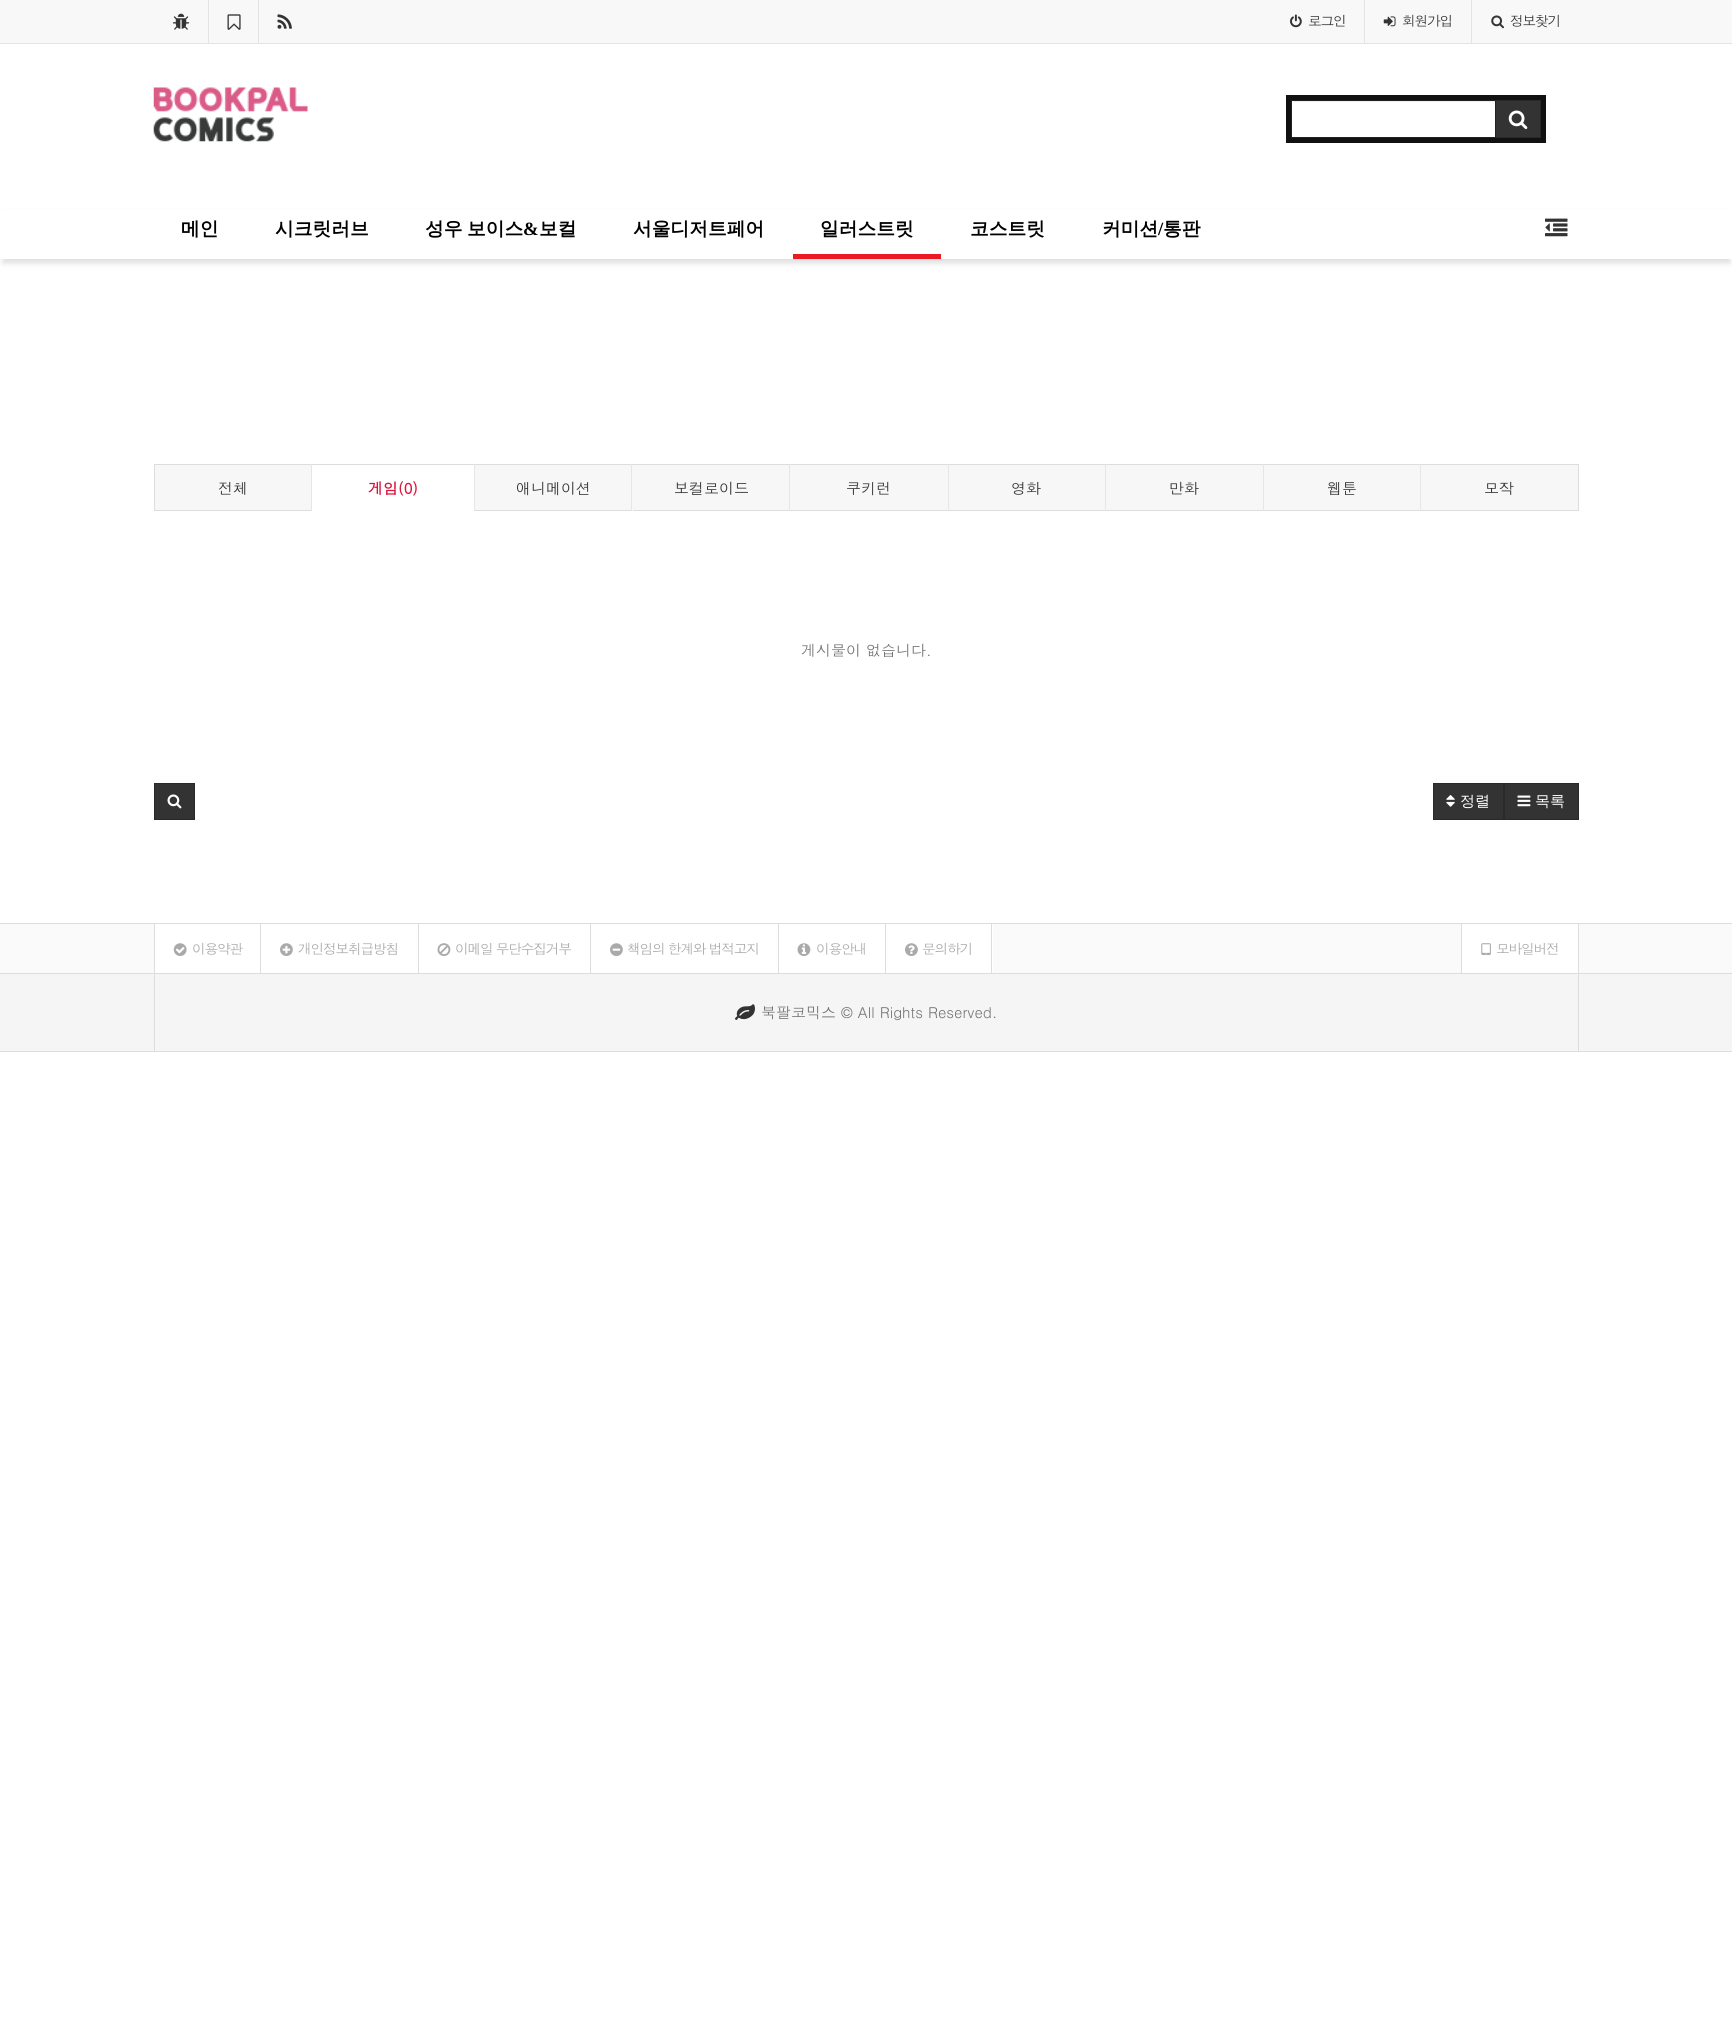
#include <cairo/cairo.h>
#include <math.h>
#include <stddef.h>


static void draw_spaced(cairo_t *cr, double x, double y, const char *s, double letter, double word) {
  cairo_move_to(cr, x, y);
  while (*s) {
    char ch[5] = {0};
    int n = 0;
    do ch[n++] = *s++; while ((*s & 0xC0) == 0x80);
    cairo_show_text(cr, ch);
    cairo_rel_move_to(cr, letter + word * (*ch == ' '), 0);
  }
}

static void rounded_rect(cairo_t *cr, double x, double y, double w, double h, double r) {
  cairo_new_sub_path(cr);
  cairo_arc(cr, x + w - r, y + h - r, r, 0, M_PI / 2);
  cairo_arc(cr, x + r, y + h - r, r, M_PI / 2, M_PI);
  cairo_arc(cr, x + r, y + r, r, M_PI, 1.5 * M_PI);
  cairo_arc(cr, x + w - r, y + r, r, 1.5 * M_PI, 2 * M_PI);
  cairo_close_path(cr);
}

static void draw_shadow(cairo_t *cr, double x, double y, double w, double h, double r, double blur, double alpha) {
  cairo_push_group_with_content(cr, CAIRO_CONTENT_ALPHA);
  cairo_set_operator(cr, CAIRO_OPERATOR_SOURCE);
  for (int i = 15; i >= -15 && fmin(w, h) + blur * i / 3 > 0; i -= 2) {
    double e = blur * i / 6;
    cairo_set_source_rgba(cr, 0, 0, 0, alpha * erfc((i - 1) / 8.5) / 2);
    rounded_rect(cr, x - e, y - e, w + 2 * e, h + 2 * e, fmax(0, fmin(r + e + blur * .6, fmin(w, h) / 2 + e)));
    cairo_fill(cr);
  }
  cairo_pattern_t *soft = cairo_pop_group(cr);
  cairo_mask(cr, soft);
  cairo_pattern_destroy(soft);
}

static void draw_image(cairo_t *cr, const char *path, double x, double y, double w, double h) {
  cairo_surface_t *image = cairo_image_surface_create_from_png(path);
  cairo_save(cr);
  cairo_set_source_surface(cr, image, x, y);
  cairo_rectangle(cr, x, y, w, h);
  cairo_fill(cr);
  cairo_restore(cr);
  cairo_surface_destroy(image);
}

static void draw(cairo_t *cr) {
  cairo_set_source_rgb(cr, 1, 1, 1);
  cairo_paint(cr);
  cairo_set_source_rgb(cr, 248 / 255.0, 248 / 255.0, 248 / 255.0);
  cairo_rectangle(cr, 0, 0, 1732, 43);
  cairo_fill(cr);
  cairo_set_source_rgb(cr, 228 / 255.0, 228 / 255.0, 228 / 255.0);
  cairo_rectangle(cr, 0, 43, 1732, 1);
  cairo_fill(cr);
  cairo_rectangle(cr, 208, 0, 1, 43);
  cairo_fill(cr);
  draw_image(cr, "images/1.png", 172, 13, 18, 17);
  cairo_rectangle(cr, 258, 0, 1, 43);
  cairo_fill(cr);
  draw_image(cr, "images/2.png", 227, 14, 14, 16);
  draw_image(cr, "images/3.png", 277, 14, 15, 15);
  cairo_rectangle(cr, 1364, 0, 1, 43);
  cairo_fill(cr);
  draw_image(cr, "images/4.png", 1290, 14, 12, 14);
  cairo_rectangle(cr, 1471, 0, 1, 43);
  cairo_fill(cr);
  draw_image(cr, "images/5.png", 1383, 16, 13, 11);
  draw_image(cr, "images/6.png", 1491, 15, 13, 14);
  draw_image(cr, "images/7.png", 153, 87, 155, 55);
  cairo_set_source_rgb(cr, 17 / 255.0, 17 / 255.0, 17 / 255.0);
  cairo_rectangle(cr, 1286, 95, 260, 48);
  cairo_fill(cr);
  cairo_set_source_rgb(cr, 1, 1, 1);
  cairo_rectangle(cr, 1292, 101, 203, 36);
  cairo_fill(cr);
  cairo_set_source_rgb(cr, 236 / 255.0, 236 / 255.0, 236 / 255.0);
  cairo_rectangle(cr, 1293, 101, 202, 1);
  cairo_fill(cr);
  cairo_set_source_rgb(cr, 51 / 255.0, 51 / 255.0, 51 / 255.0);
  cairo_rectangle(cr, 1495.5, 100.5, 45, 37);
  cairo_fill_preserve(cr);
  cairo_set_source_rgb(cr, 41 / 255.0, 41 / 255.0, 41 / 255.0);
  cairo_set_line_width(cr, 1);
  cairo_stroke(cr);
  cairo_rectangle(cr, 1291.5, 100.5, 204, 37);
  cairo_set_source_rgb(cr, 34 / 255.0, 34 / 255.0, 34 / 255.0);
  cairo_stroke(cr);
  draw_image(cr, "images/8.png", 1508, 110, 20, 20);
  cairo_set_source_rgb(cr, 25 / 255.0, 25 / 255.0, 25 / 255.0);
  draw_shadow(cr, 3, 213, 1727, 50, 0, 3, 0.15);
  cairo_set_source_rgb(cr, 1, 1, 1);
  cairo_rectangle(cr, 0, 209, 1732, 50);
  cairo_fill(cr);
  cairo_set_source_rgb(cr, 233 / 255.0, 27 / 255.0, 35 / 255.0);
  cairo_rectangle(cr, 793, 254, 148, 5);
  cairo_fill(cr);
  draw_image(cr, "images/9.png", 1545, 218, 23, 19);
  cairo_set_source_rgb(cr, 247 / 255.0, 247 / 255.0, 247 / 255.0);
  cairo_rectangle(cr, 155, 465, 156, 45);
  cairo_fill(cr);
  cairo_set_source_rgb(cr, 221 / 255.0, 221 / 255.0, 221 / 255.0);
  cairo_rectangle(cr, 154, 464, 1425, 1);
  cairo_fill(cr);
  cairo_rectangle(cr, 154, 464, 1, 47);
  cairo_fill(cr);
  cairo_rectangle(cr, 155, 510, 156, 1);
  cairo_fill(cr);
  cairo_set_source_rgb(cr, 230 / 255.0, 230 / 255.0, 230 / 255.0);
  cairo_rectangle(cr, 311, 464, 1, 47);
  cairo_fill(cr);
  cairo_set_source_rgb(cr, 247 / 255.0, 247 / 255.0, 247 / 255.0);
  cairo_rectangle(cr, 475, 465, 156, 45);
  cairo_fill(cr);
  cairo_set_source_rgb(cr, 230 / 255.0, 230 / 255.0, 230 / 255.0);
  cairo_rectangle(cr, 474, 464, 1, 47);
  cairo_fill(cr);
  cairo_set_source_rgb(cr, 221 / 255.0, 221 / 255.0, 221 / 255.0);
  cairo_rectangle(cr, 475, 510, 156, 1);
  cairo_fill(cr);
  cairo_set_source_rgb(cr, 247 / 255.0, 247 / 255.0, 247 / 255.0);
  cairo_rectangle(cr, 632, 465, 157, 46);
  cairo_fill(cr);
  cairo_set_source_rgb(cr, 230 / 255.0, 230 / 255.0, 230 / 255.0);
  cairo_rectangle(cr, 631, 464, 1, 47);
  cairo_fill(cr);
  cairo_set_source_rgb(cr, 221 / 255.0, 221 / 255.0, 221 / 255.0);
  cairo_rectangle(cr, 633, 510, 156, 1);
  cairo_fill(cr);
  cairo_set_source_rgb(cr, 247 / 255.0, 247 / 255.0, 247 / 255.0);
  cairo_rectangle(cr, 790, 465, 158, 45);
  cairo_fill(cr);
  cairo_set_source_rgb(cr, 230 / 255.0, 230 / 255.0, 230 / 255.0);
  cairo_rectangle(cr, 789, 464, 1, 47);
  cairo_fill(cr);
  cairo_set_source_rgb(cr, 221 / 255.0, 221 / 255.0, 221 / 255.0);
  cairo_rectangle(cr, 790, 510, 158, 1);
  cairo_fill(cr);
  cairo_set_source_rgb(cr, 247 / 255.0, 247 / 255.0, 247 / 255.0);
  cairo_rectangle(cr, 949, 465, 156, 45);
  cairo_fill(cr);
  cairo_set_source_rgb(cr, 230 / 255.0, 230 / 255.0, 230 / 255.0);
  cairo_rectangle(cr, 948, 464, 1, 47);
  cairo_fill(cr);
  cairo_set_source_rgb(cr, 221 / 255.0, 221 / 255.0, 221 / 255.0);
  cairo_rectangle(cr, 949, 510, 156, 1);
  cairo_fill(cr);
  cairo_set_source_rgb(cr, 247 / 255.0, 247 / 255.0, 247 / 255.0);
  cairo_rectangle(cr, 1106, 465, 157, 45);
  cairo_fill(cr);
  cairo_set_source_rgb(cr, 230 / 255.0, 230 / 255.0, 230 / 255.0);
  cairo_rectangle(cr, 1105, 464, 1, 47);
  cairo_fill(cr);
  cairo_set_source_rgb(cr, 221 / 255.0, 221 / 255.0, 221 / 255.0);
  cairo_rectangle(cr, 1106, 510, 157, 1);
  cairo_fill(cr);
  cairo_set_source_rgb(cr, 247 / 255.0, 247 / 255.0, 247 / 255.0);
  cairo_rectangle(cr, 1264, 465, 156, 45);
  cairo_fill(cr);
  cairo_set_source_rgb(cr, 230 / 255.0, 230 / 255.0, 230 / 255.0);
  cairo_rectangle(cr, 1263, 464, 1, 47);
  cairo_fill(cr);
  cairo_set_source_rgb(cr, 221 / 255.0, 221 / 255.0, 221 / 255.0);
  cairo_rectangle(cr, 1264, 510, 156, 1);
  cairo_fill(cr);
  cairo_set_source_rgb(cr, 247 / 255.0, 247 / 255.0, 247 / 255.0);
  cairo_rectangle(cr, 1421, 465, 157, 45);
  cairo_fill(cr);
  cairo_set_source_rgb(cr, 221 / 255.0, 221 / 255.0, 221 / 255.0);
  cairo_rectangle(cr, 1578, 464, 1, 47);
  cairo_fill(cr);
  cairo_set_source_rgb(cr, 230 / 255.0, 230 / 255.0, 230 / 255.0);
  cairo_rectangle(cr, 1420, 464, 1, 47);
  cairo_fill(cr);
  cairo_set_source_rgb(cr, 221 / 255.0, 221 / 255.0, 221 / 255.0);
  cairo_rectangle(cr, 1421, 510, 157, 1);
  cairo_fill(cr);
  cairo_set_source_rgb(cr, 51 / 255.0, 51 / 255.0, 51 / 255.0);
  cairo_rectangle(cr, 154.5, 783.5, 40, 36);
  cairo_fill_preserve(cr);
  cairo_set_source_rgb(cr, 41 / 255.0, 41 / 255.0, 41 / 255.0);
  cairo_stroke(cr);
  draw_image(cr, "images/10.png", 167, 794, 15, 15);
  cairo_set_source_rgb(cr, 51 / 255.0, 51 / 255.0, 51 / 255.0);
  cairo_rectangle(cr, 1433.5, 783.5, 70, 36);
  cairo_fill_preserve(cr);
  cairo_set_source_rgb(cr, 41 / 255.0, 41 / 255.0, 41 / 255.0);
  cairo_stroke(cr);
  draw_image(cr, "images/11.png", 1446, 795, 9, 12);
  cairo_set_source_rgb(cr, 51 / 255.0, 51 / 255.0, 51 / 255.0);
  cairo_rectangle(cr, 1504.5, 783.5, 74, 36);
  cairo_fill_preserve(cr);
  cairo_set_source_rgb(cr, 41 / 255.0, 41 / 255.0, 41 / 255.0);
  cairo_stroke(cr);
  draw_image(cr, "images/12.png", 1517, 795, 14, 12);
  cairo_set_source_rgb(cr, 221 / 255.0, 221 / 255.0, 221 / 255.0);
  cairo_rectangle(cr, 0, 923, 1732, 1);
  cairo_fill(cr);
  cairo_rectangle(cr, 0, 1051, 1732, 1);
  cairo_fill(cr);
  cairo_set_source_rgb(cr, 250 / 255.0, 250 / 255.0, 250 / 255.0);
  cairo_rectangle(cr, 0, 924, 1732, 49);
  cairo_fill(cr);
  cairo_set_source_rgb(cr, 221 / 255.0, 221 / 255.0, 221 / 255.0);
  cairo_rectangle(cr, 0, 973, 1732, 1);
  cairo_fill(cr);
  cairo_set_source_rgb(cr, 1, 1, 1);
  cairo_rectangle(cr, 155, 924, 105, 49);
  cairo_fill(cr);
  cairo_set_source_rgb(cr, 221 / 255.0, 221 / 255.0, 221 / 255.0);
  cairo_rectangle(cr, 260, 924, 1, 49);
  cairo_fill(cr);
  cairo_rectangle(cr, 154, 924, 1, 49);
  cairo_fill(cr);
  draw_image(cr, "images/13.png", 173, 943, 14, 13);
  cairo_set_source_rgb(cr, 1, 1, 1);
  cairo_rectangle(cr, 261, 924, 157, 49);
  cairo_fill(cr);
  cairo_set_source_rgb(cr, 221 / 255.0, 221 / 255.0, 221 / 255.0);
  cairo_rectangle(cr, 418, 924, 1, 49);
  cairo_fill(cr);
  draw_image(cr, "images/14.png", 280, 943, 13, 13);
  cairo_set_source_rgb(cr, 1, 1, 1);
  cairo_rectangle(cr, 419, 924, 171, 49);
  cairo_fill(cr);
  cairo_set_source_rgb(cr, 221 / 255.0, 221 / 255.0, 221 / 255.0);
  cairo_rectangle(cr, 590, 924, 1, 49);
  cairo_fill(cr);
  draw_image(cr, "images/15.png", 437, 943, 14, 13);
  cairo_set_source_rgb(cr, 1, 1, 1);
  cairo_rectangle(cr, 591, 924, 187, 49);
  cairo_fill(cr);
  cairo_set_source_rgb(cr, 221 / 255.0, 221 / 255.0, 221 / 255.0);
  cairo_rectangle(cr, 778, 924, 1, 49);
  cairo_fill(cr);
  draw_image(cr, "images/16.png", 610, 943, 13, 13);
  cairo_set_source_rgb(cr, 1, 1, 1);
  cairo_rectangle(cr, 779, 924, 106, 49);
  cairo_fill(cr);
  cairo_set_source_rgb(cr, 221 / 255.0, 221 / 255.0, 221 / 255.0);
  cairo_rectangle(cr, 885, 924, 1, 49);
  cairo_fill(cr);
  draw_image(cr, "images/17.png", 797, 943, 14, 13);
  cairo_set_source_rgb(cr, 1, 1, 1);
  cairo_rectangle(cr, 886, 924, 107, 49);
  cairo_fill(cr);
  cairo_set_source_rgb(cr, 221 / 255.0, 221 / 255.0, 221 / 255.0);
  cairo_rectangle(cr, 991, 924, 1, 49);
  cairo_fill(cr);
  draw_image(cr, "images/18.png", 905, 943, 13, 13);
  cairo_set_source_rgb(cr, 1, 1, 1);
  cairo_rectangle(cr, 1462, 924, 116, 49);
  cairo_fill(cr);
  cairo_set_source_rgb(cr, 221 / 255.0, 221 / 255.0, 221 / 255.0);
  cairo_rectangle(cr, 1578, 924, 1, 49);
  cairo_fill(cr);
  cairo_rectangle(cr, 1461, 924, 1, 49);
  cairo_fill(cr);
  draw_image(cr, "images/19.png", 1481, 943, 10, 12);
  cairo_set_source_rgb(cr, 245 / 255.0, 245 / 255.0, 245 / 255.0);
  cairo_rectangle(cr, 0, 974, 1732, 77);
  cairo_fill(cr);
  cairo_set_source_rgb(cr, 221 / 255.0, 221 / 255.0, 221 / 255.0);
  cairo_rectangle(cr, 1578, 974, 1, 77);
  cairo_fill(cr);
  cairo_rectangle(cr, 154, 974, 1, 77);
  cairo_fill(cr);
  draw_image(cr, "images/20.png", 735, 1004, 20, 16);
  cairo_select_font_face(cr, "Dotum", CAIRO_FONT_SLANT_NORMAL, CAIRO_FONT_WEIGHT_NORMAL);
  cairo_set_font_size(cr, 13.75);
  cairo_set_source_rgb(cr, 51 / 255.0, 51 / 255.0, 51 / 255.0);
  draw_spaced(cr, 1308, 26, "로그인", -1.25, 0);
  draw_spaced(cr, 1402, 26, "회원가입", -1.25, 0);
  draw_spaced(cr, 1510, 26, "정보찾기", -1.25, 0);
  cairo_select_font_face(cr, "WenQuanYi Zen Hei", CAIRO_FONT_SLANT_NORMAL, CAIRO_FONT_WEIGHT_BOLD);
  cairo_set_font_size(cr, 18.75);
  cairo_set_source_rgb(cr, 0, 0, 0);
  cairo_move_to(cr, 181, 235);
  cairo_show_text(cr, "메인");
  cairo_move_to(cr, 275, 235);
  cairo_show_text(cr, "시크릿러브");
  draw_spaced(cr, 425, 235, "성우 보이스", 0, -1);
  cairo_select_font_face(cr, "Liberation Serif", CAIRO_FONT_SLANT_NORMAL, CAIRO_FONT_WEIGHT_BOLD);
  cairo_move_to(cr, 523, 235);
  cairo_show_text(cr, "&");
  cairo_select_font_face(cr, "WenQuanYi Zen Hei", CAIRO_FONT_SLANT_NORMAL, CAIRO_FONT_WEIGHT_BOLD);
  cairo_move_to(cr, 539, 235);
  cairo_show_text(cr, "보컬");
  cairo_move_to(cr, 633, 235);
  cairo_show_text(cr, "서울디저트페어");
  cairo_move_to(cr, 820, 235);
  cairo_show_text(cr, "일러스트릿");
  cairo_move_to(cr, 970, 235);
  cairo_show_text(cr, "코스트릿");
  cairo_move_to(cr, 1102, 235);
  cairo_show_text(cr, "커미션");
  cairo_select_font_face(cr, "Liberation Serif", CAIRO_FONT_SLANT_NORMAL, CAIRO_FONT_WEIGHT_BOLD);
  cairo_move_to(cr, 1158, 235);
  cairo_show_text(cr, "/");
  cairo_select_font_face(cr, "WenQuanYi Zen Hei", CAIRO_FONT_SLANT_NORMAL, CAIRO_FONT_WEIGHT_BOLD);
  cairo_move_to(cr, 1163, 235);
  cairo_show_text(cr, "통판");
  cairo_select_font_face(cr, "Dotum", CAIRO_FONT_SLANT_NORMAL, CAIRO_FONT_WEIGHT_NORMAL);
  cairo_set_font_size(cr, 15);
  cairo_set_source_rgb(cr, 51 / 255.0, 51 / 255.0, 51 / 255.0);
  cairo_move_to(cr, 218, 494);
  cairo_show_text(cr, "전체");
  cairo_select_font_face(cr, "Dotum", CAIRO_FONT_SLANT_NORMAL, CAIRO_FONT_WEIGHT_BOLD);
  cairo_set_source_rgb(cr, 220 / 255.0, 20 / 255.0, 60 / 255.0);
  cairo_move_to(cr, 368, 494);
  cairo_show_text(cr, "게임(0)");
  cairo_select_font_face(cr, "Dotum", CAIRO_FONT_SLANT_NORMAL, CAIRO_FONT_WEIGHT_NORMAL);
  cairo_set_source_rgb(cr, 51 / 255.0, 51 / 255.0, 51 / 255.0);
  cairo_move_to(cr, 516, 494);
  cairo_show_text(cr, "애니메이션");
  cairo_move_to(cr, 674, 494);
  cairo_show_text(cr, "보컬로이드");
  cairo_move_to(cr, 846, 494);
  cairo_show_text(cr, "쿠키런");
  cairo_move_to(cr, 1011, 494);
  cairo_show_text(cr, "영화");
  cairo_move_to(cr, 1169, 494);
  cairo_show_text(cr, "만화");
  cairo_move_to(cr, 1327, 494);
  cairo_show_text(cr, "웹툰");
  cairo_move_to(cr, 1484, 494);
  cairo_show_text(cr, "모작");
  cairo_set_source_rgb(cr, 115 / 255.0, 115 / 255.0, 115 / 255.0);
  cairo_move_to(cr, 801, 656);
  cairo_show_text(cr, "게시물이 없습니다.");
  cairo_select_font_face(cr, "WenQuanYi Zen Hei Medium", CAIRO_FONT_SLANT_NORMAL, CAIRO_FONT_WEIGHT_NORMAL);
  cairo_set_source_rgb(cr, 1, 1, 1);
  cairo_move_to(cr, 1460, 806);
  cairo_show_text(cr, "정렬");
  cairo_move_to(cr, 1535, 806);
  cairo_show_text(cr, "목록");
  cairo_select_font_face(cr, "Dotum", CAIRO_FONT_SLANT_NORMAL, CAIRO_FONT_WEIGHT_NORMAL);
  cairo_set_font_size(cr, 13.75);
  cairo_set_source_rgb(cr, 170 / 255.0, 170 / 255.0, 170 / 255.0);
  draw_spaced(cr, 192, 954, "이용약관", -1.25, 0);
  draw_spaced(cr, 298, 954, "개인정보취급방침", -1.25, 0);
  draw_spaced(cr, 455, 954, "이메일 무단수집거부", -1.25, 0);
  draw_spaced(cr, 627, 954, "책임의 한계와 법적고지", -1.25, 0);
  draw_spaced(cr, 816, 954, "이용안내", -1.25, 0);
  draw_spaced(cr, 922, 954, "문의하기", -1.25, 0);
  draw_spaced(cr, 1496, 954, "모바일버전", -1.25, 0);
  cairo_set_font_size(cr, 15);
  cairo_set_source_rgb(cr, 115 / 255.0, 115 / 255.0, 115 / 255.0);
  cairo_move_to(cr, 761, 1018);
  cairo_show_text(cr, "북팔코믹스 © All Rights Reserved.");
}

int main(void) {
  cairo_surface_t *surface = cairo_image_surface_create(CAIRO_FORMAT_RGB24, 1732, 2033);
  cairo_t *cr = cairo_create(surface);
  cairo_font_options_t *options = cairo_font_options_create();
  cairo_font_options_set_hint_metrics(options, CAIRO_HINT_METRICS_OFF);
  cairo_font_options_set_hint_style(options, CAIRO_HINT_STYLE_NONE);
  cairo_set_font_options(cr, options);
  cairo_set_miter_limit(cr, 4);
  draw(cr);
  cairo_surface_write_to_png(surface, "out.png");
  cairo_font_options_destroy(options);
  cairo_destroy(cr);
  cairo_surface_destroy(surface);
  return 0;
}
